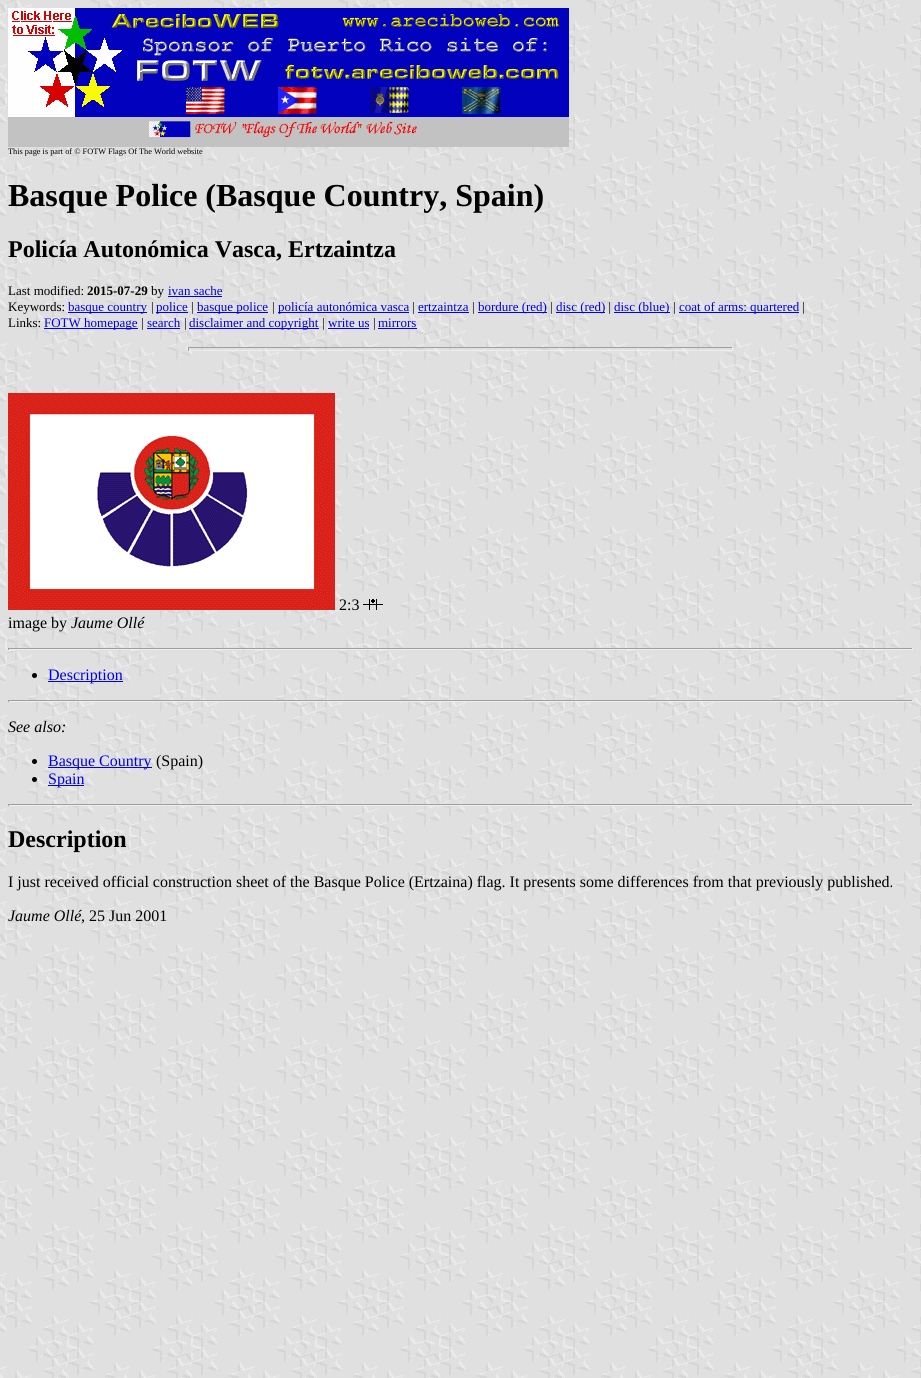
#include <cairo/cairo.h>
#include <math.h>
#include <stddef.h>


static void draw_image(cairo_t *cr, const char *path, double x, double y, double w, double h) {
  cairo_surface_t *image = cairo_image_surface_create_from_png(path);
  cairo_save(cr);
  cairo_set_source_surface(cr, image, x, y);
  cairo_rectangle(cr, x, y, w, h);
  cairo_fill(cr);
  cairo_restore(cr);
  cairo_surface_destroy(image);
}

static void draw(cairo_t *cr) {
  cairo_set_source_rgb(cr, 1, 1, 1);
  cairo_paint(cr);
  draw_image(cr, "images/1.png", 0, 0, 921, 1378);
  draw_image(cr, "images/2.png", 8, 8, 561, 139);
  cairo_set_source_rgb(cr, 0, 0, 238 / 255.0);
  cairo_rectangle(cr, 168, 296, 54, 1);
  cairo_fill(cr);
  cairo_rectangle(cr, 68, 312, 79, 1);
  cairo_fill(cr);
  cairo_rectangle(cr, 156, 312, 32, 1);
  cairo_fill(cr);
  cairo_rectangle(cr, 197, 312, 71, 1);
  cairo_fill(cr);
  cairo_rectangle(cr, 278, 312, 131, 1);
  cairo_fill(cr);
  cairo_rectangle(cr, 418, 312, 51, 1);
  cairo_fill(cr);
  cairo_rectangle(cr, 478, 312, 69, 1);
  cairo_fill(cr);
  cairo_rectangle(cr, 556, 312, 49, 1);
  cairo_fill(cr);
  cairo_rectangle(cr, 614, 312, 56, 1);
  cairo_fill(cr);
  cairo_rectangle(cr, 679, 312, 120, 1);
  cairo_fill(cr);
  cairo_rectangle(cr, 44, 328, 94, 1);
  cairo_fill(cr);
  cairo_rectangle(cr, 147, 328, 33, 1);
  cairo_fill(cr);
  cairo_rectangle(cr, 189, 328, 130, 1);
  cairo_fill(cr);
  cairo_rectangle(cr, 328, 328, 41, 1);
  cairo_fill(cr);
  cairo_rectangle(cr, 378, 328, 39, 1);
  cairo_fill(cr);
  cairo_set_source_rgb(cr, 159 / 255.0, 159 / 255.0, 159 / 255.0);
  cairo_rectangle(cr, 188, 347, 545, 1);
  cairo_fill(cr);
  cairo_set_source_rgb(cr, 238 / 255.0, 238 / 255.0, 238 / 255.0);
  cairo_rectangle(cr, 732, 347, 1, 4);
  cairo_fill(cr);
  cairo_rectangle(cr, 188, 350, 545, 1);
  cairo_fill(cr);
  cairo_set_source_rgb(cr, 159 / 255.0, 159 / 255.0, 159 / 255.0);
  cairo_rectangle(cr, 188, 347, 1, 4);
  cairo_fill(cr);
  draw_image(cr, "images/3.png", 8, 393, 327, 217);
  draw_image(cr, "images/4.png", 363, 599, 20, 11);
  cairo_rectangle(cr, 8, 648, 905, 1);
  cairo_fill(cr);
  cairo_set_source_rgb(cr, 238 / 255.0, 238 / 255.0, 238 / 255.0);
  cairo_rectangle(cr, 912, 648, 1, 2);
  cairo_fill(cr);
  cairo_rectangle(cr, 8, 649, 905, 1);
  cairo_fill(cr);
  cairo_set_source_rgb(cr, 159 / 255.0, 159 / 255.0, 159 / 255.0);
  cairo_rectangle(cr, 8, 648, 1, 2);
  cairo_fill(cr);
  cairo_set_source_rgb(cr, 0, 0, 0);
  cairo_arc(cr, 34.5, 675.5, 2.5, 0, 2 * M_PI);
  cairo_fill(cr);
  cairo_set_source_rgb(cr, 0, 0, 238 / 255.0);
  cairo_rectangle(cr, 48, 681, 75, 1);
  cairo_fill(cr);
  cairo_set_source_rgb(cr, 159 / 255.0, 159 / 255.0, 159 / 255.0);
  cairo_rectangle(cr, 8, 700, 905, 1);
  cairo_fill(cr);
  cairo_set_source_rgb(cr, 238 / 255.0, 238 / 255.0, 238 / 255.0);
  cairo_rectangle(cr, 912, 700, 1, 2);
  cairo_fill(cr);
  cairo_rectangle(cr, 8, 701, 905, 1);
  cairo_fill(cr);
  cairo_set_source_rgb(cr, 159 / 255.0, 159 / 255.0, 159 / 255.0);
  cairo_rectangle(cr, 8, 700, 1, 2);
  cairo_fill(cr);
  cairo_set_source_rgb(cr, 0, 0, 0);
  cairo_arc(cr, 34.5, 761.5, 2.5, 0, 2 * M_PI);
  cairo_fill(cr);
  cairo_set_source_rgb(cr, 0, 0, 238 / 255.0);
  cairo_rectangle(cr, 48, 767, 104, 1);
  cairo_fill(cr);
  cairo_set_source_rgb(cr, 0, 0, 0);
  cairo_arc(cr, 34.5, 779.5, 2.5, 0, 2 * M_PI);
  cairo_fill(cr);
  cairo_set_source_rgb(cr, 0, 0, 238 / 255.0);
  cairo_rectangle(cr, 48, 785, 36, 1);
  cairo_fill(cr);
  cairo_set_source_rgb(cr, 159 / 255.0, 159 / 255.0, 159 / 255.0);
  cairo_rectangle(cr, 8, 804, 905, 1);
  cairo_fill(cr);
  cairo_set_source_rgb(cr, 238 / 255.0, 238 / 255.0, 238 / 255.0);
  cairo_rectangle(cr, 912, 804, 1, 2);
  cairo_fill(cr);
  cairo_rectangle(cr, 8, 805, 905, 1);
  cairo_fill(cr);
  cairo_set_source_rgb(cr, 159 / 255.0, 159 / 255.0, 159 / 255.0);
  cairo_rectangle(cr, 8, 804, 1, 2);
  cairo_fill(cr);
  cairo_select_font_face(cr, "Liberation Serif", CAIRO_FONT_SLANT_NORMAL, CAIRO_FONT_WEIGHT_NORMAL);
  cairo_set_font_size(cr, 8.3);
  cairo_set_source_rgb(cr, 0, 0, 0);
  cairo_move_to(cr, 8, 154);
  cairo_show_text(cr, "This page is part of © FOTW Flags Of The World website");
  cairo_select_font_face(cr, "Liberation Serif", CAIRO_FONT_SLANT_NORMAL, CAIRO_FONT_WEIGHT_BOLD);
  cairo_set_font_size(cr, 32);
  cairo_move_to(cr, 8, 206);
  cairo_show_text(cr, "Basque Police (Basque Country, Spain)");
  cairo_set_font_size(cr, 24);
  cairo_move_to(cr, 8, 257);
  cairo_show_text(cr, "Policía Autonómica Vasca, Ertzaintza");
  cairo_select_font_face(cr, "Liberation Serif", CAIRO_FONT_SLANT_NORMAL, CAIRO_FONT_WEIGHT_NORMAL);
  cairo_set_font_size(cr, 13);
  cairo_move_to(cr, 8, 295);
  cairo_show_text(cr, "Last modified:");
  cairo_select_font_face(cr, "Liberation Serif", CAIRO_FONT_SLANT_NORMAL, CAIRO_FONT_WEIGHT_BOLD);
  cairo_move_to(cr, 87, 295);
  cairo_show_text(cr, "2015-07-29");
  cairo_select_font_face(cr, "Liberation Serif", CAIRO_FONT_SLANT_NORMAL, CAIRO_FONT_WEIGHT_NORMAL);
  cairo_move_to(cr, 151, 295);
  cairo_show_text(cr, "by");
  cairo_set_source_rgb(cr, 0, 0, 238 / 255.0);
  cairo_move_to(cr, 168, 295);
  cairo_show_text(cr, "ivan sache");
  cairo_set_source_rgb(cr, 0, 0, 0);
  cairo_move_to(cr, 8, 311);
  cairo_show_text(cr, "Keywords:");
  cairo_set_source_rgb(cr, 0, 0, 238 / 255.0);
  cairo_move_to(cr, 68, 311);
  cairo_show_text(cr, "basque country");
  cairo_set_source_rgb(cr, 0, 0, 0);
  cairo_move_to(cr, 151, 311);
  cairo_show_text(cr, "|");
  cairo_set_source_rgb(cr, 0, 0, 238 / 255.0);
  cairo_move_to(cr, 156, 311);
  cairo_show_text(cr, "police");
  cairo_set_source_rgb(cr, 0, 0, 0);
  cairo_move_to(cr, 191, 311);
  cairo_show_text(cr, "|");
  cairo_set_source_rgb(cr, 0, 0, 238 / 255.0);
  cairo_move_to(cr, 197, 311);
  cairo_show_text(cr, "basque police");
  cairo_set_source_rgb(cr, 0, 0, 0);
  cairo_move_to(cr, 272, 311);
  cairo_show_text(cr, "|");
  cairo_set_source_rgb(cr, 0, 0, 238 / 255.0);
  cairo_move_to(cr, 278, 311);
  cairo_show_text(cr, "policía autonómica vasca");
  cairo_set_source_rgb(cr, 0, 0, 0);
  cairo_move_to(cr, 412, 311);
  cairo_show_text(cr, "|");
  cairo_set_source_rgb(cr, 0, 0, 238 / 255.0);
  cairo_move_to(cr, 418, 311);
  cairo_show_text(cr, "ertzaintza");
  cairo_set_source_rgb(cr, 0, 0, 0);
  cairo_move_to(cr, 472, 311);
  cairo_show_text(cr, "|");
  cairo_set_source_rgb(cr, 0, 0, 238 / 255.0);
  cairo_move_to(cr, 478, 311);
  cairo_show_text(cr, "bordure (red)");
  cairo_set_source_rgb(cr, 0, 0, 0);
  cairo_move_to(cr, 550, 311);
  cairo_show_text(cr, "|");
  cairo_set_source_rgb(cr, 0, 0, 238 / 255.0);
  cairo_move_to(cr, 556, 311);
  cairo_show_text(cr, "disc (red)");
  cairo_set_source_rgb(cr, 0, 0, 0);
  cairo_move_to(cr, 608, 311);
  cairo_show_text(cr, "|");
  cairo_set_source_rgb(cr, 0, 0, 238 / 255.0);
  cairo_move_to(cr, 614, 311);
  cairo_show_text(cr, "disc (blue)");
  cairo_set_source_rgb(cr, 0, 0, 0);
  cairo_move_to(cr, 673, 311);
  cairo_show_text(cr, "|");
  cairo_set_source_rgb(cr, 0, 0, 238 / 255.0);
  cairo_move_to(cr, 679, 311);
  cairo_show_text(cr, "coat of arms: quartered");
  cairo_set_source_rgb(cr, 0, 0, 0);
  cairo_move_to(cr, 802, 311);
  cairo_show_text(cr, "|");
  cairo_move_to(cr, 8, 327);
  cairo_show_text(cr, "Links:");
  cairo_set_source_rgb(cr, 0, 0, 238 / 255.0);
  cairo_move_to(cr, 44, 327);
  cairo_show_text(cr, "FOTW homepage");
  cairo_set_source_rgb(cr, 0, 0, 0);
  cairo_move_to(cr, 141, 327);
  cairo_show_text(cr, "|");
  cairo_set_source_rgb(cr, 0, 0, 238 / 255.0);
  cairo_move_to(cr, 147, 327);
  cairo_show_text(cr, "search");
  cairo_set_source_rgb(cr, 0, 0, 0);
  cairo_move_to(cr, 184, 327);
  cairo_show_text(cr, "|");
  cairo_set_source_rgb(cr, 0, 0, 238 / 255.0);
  cairo_move_to(cr, 189, 327);
  cairo_show_text(cr, "disclaimer and copyright");
  cairo_set_source_rgb(cr, 0, 0, 0);
  cairo_move_to(cr, 322, 327);
  cairo_show_text(cr, "|");
  cairo_set_source_rgb(cr, 0, 0, 238 / 255.0);
  cairo_move_to(cr, 328, 327);
  cairo_show_text(cr, "write us");
  cairo_set_source_rgb(cr, 0, 0, 0);
  cairo_move_to(cr, 373, 327);
  cairo_show_text(cr, "|");
  cairo_set_source_rgb(cr, 0, 0, 238 / 255.0);
  cairo_move_to(cr, 378, 327);
  cairo_show_text(cr, "mirrors");
  cairo_set_font_size(cr, 16);
  cairo_set_source_rgb(cr, 0, 0, 0);
  cairo_move_to(cr, 339, 610);
  cairo_show_text(cr, "2:3");
  cairo_move_to(cr, 8, 628);
  cairo_show_text(cr, "image by");
  cairo_select_font_face(cr, "Liberation Serif", CAIRO_FONT_SLANT_ITALIC, CAIRO_FONT_WEIGHT_NORMAL);
  cairo_move_to(cr, 71, 628);
  cairo_show_text(cr, "Jaume Ollé");
  cairo_select_font_face(cr, "Liberation Serif", CAIRO_FONT_SLANT_NORMAL, CAIRO_FONT_WEIGHT_NORMAL);
  cairo_set_source_rgb(cr, 0, 0, 238 / 255.0);
  cairo_move_to(cr, 48, 680);
  cairo_show_text(cr, "Description");
  cairo_select_font_face(cr, "Liberation Serif", CAIRO_FONT_SLANT_ITALIC, CAIRO_FONT_WEIGHT_NORMAL);
  cairo_set_source_rgb(cr, 0, 0, 0);
  cairo_move_to(cr, 8, 732);
  cairo_show_text(cr, "See also:");
  cairo_select_font_face(cr, "Liberation Serif", CAIRO_FONT_SLANT_NORMAL, CAIRO_FONT_WEIGHT_NORMAL);
  cairo_set_source_rgb(cr, 0, 0, 238 / 255.0);
  cairo_move_to(cr, 48, 766);
  cairo_show_text(cr, "Basque Country");
  cairo_set_source_rgb(cr, 0, 0, 0);
  cairo_move_to(cr, 156, 766);
  cairo_show_text(cr, "(Spain)");
  cairo_set_source_rgb(cr, 0, 0, 238 / 255.0);
  cairo_move_to(cr, 48, 784);
  cairo_show_text(cr, "Spain");
  cairo_select_font_face(cr, "Liberation Serif", CAIRO_FONT_SLANT_NORMAL, CAIRO_FONT_WEIGHT_BOLD);
  cairo_set_font_size(cr, 24);
  cairo_set_source_rgb(cr, 0, 0, 0);
  cairo_move_to(cr, 8, 847);
  cairo_show_text(cr, "Description");
  cairo_select_font_face(cr, "Liberation Serif", CAIRO_FONT_SLANT_NORMAL, CAIRO_FONT_WEIGHT_NORMAL);
  cairo_set_font_size(cr, 16);
  cairo_move_to(cr, 8, 887);
  cairo_show_text(cr, "I just received official construction sheet of the Basque Police (Ertzaina) flag. It presents some differences from that previously published.");
  cairo_select_font_face(cr, "Liberation Serif", CAIRO_FONT_SLANT_ITALIC, CAIRO_FONT_WEIGHT_NORMAL);
  cairo_move_to(cr, 8, 921);
  cairo_show_text(cr, "Jaume Ollé");
  cairo_select_font_face(cr, "Liberation Serif", CAIRO_FONT_SLANT_NORMAL, CAIRO_FONT_WEIGHT_NORMAL);
  cairo_move_to(cr, 81, 921);
  cairo_show_text(cr, ", 25 Jun 2001");
}

int main(void) {
  cairo_surface_t *surface = cairo_image_surface_create(CAIRO_FORMAT_RGB24, 921, 1378);
  cairo_t *cr = cairo_create(surface);
  cairo_font_options_t *options = cairo_font_options_create();
  cairo_font_options_set_hint_metrics(options, CAIRO_HINT_METRICS_OFF);
  cairo_font_options_set_hint_style(options, CAIRO_HINT_STYLE_NONE);
  cairo_set_font_options(cr, options);
  cairo_set_miter_limit(cr, 4);
  draw(cr);
  cairo_surface_write_to_png(surface, "out.png");
  cairo_font_options_destroy(options);
  cairo_destroy(cr);
  cairo_surface_destroy(surface);
  return 0;
}
